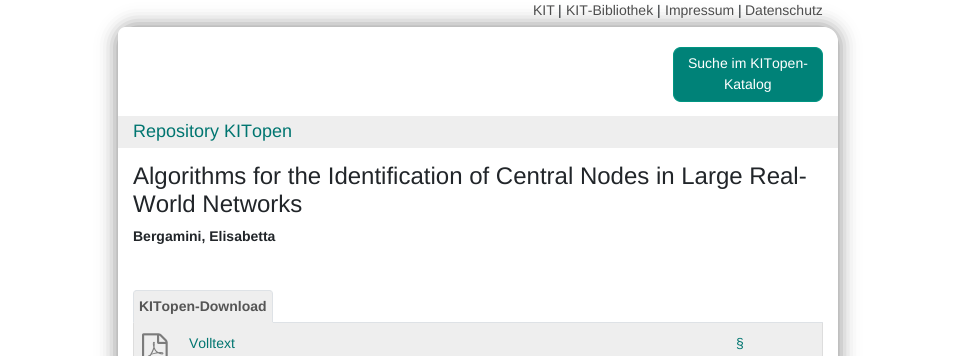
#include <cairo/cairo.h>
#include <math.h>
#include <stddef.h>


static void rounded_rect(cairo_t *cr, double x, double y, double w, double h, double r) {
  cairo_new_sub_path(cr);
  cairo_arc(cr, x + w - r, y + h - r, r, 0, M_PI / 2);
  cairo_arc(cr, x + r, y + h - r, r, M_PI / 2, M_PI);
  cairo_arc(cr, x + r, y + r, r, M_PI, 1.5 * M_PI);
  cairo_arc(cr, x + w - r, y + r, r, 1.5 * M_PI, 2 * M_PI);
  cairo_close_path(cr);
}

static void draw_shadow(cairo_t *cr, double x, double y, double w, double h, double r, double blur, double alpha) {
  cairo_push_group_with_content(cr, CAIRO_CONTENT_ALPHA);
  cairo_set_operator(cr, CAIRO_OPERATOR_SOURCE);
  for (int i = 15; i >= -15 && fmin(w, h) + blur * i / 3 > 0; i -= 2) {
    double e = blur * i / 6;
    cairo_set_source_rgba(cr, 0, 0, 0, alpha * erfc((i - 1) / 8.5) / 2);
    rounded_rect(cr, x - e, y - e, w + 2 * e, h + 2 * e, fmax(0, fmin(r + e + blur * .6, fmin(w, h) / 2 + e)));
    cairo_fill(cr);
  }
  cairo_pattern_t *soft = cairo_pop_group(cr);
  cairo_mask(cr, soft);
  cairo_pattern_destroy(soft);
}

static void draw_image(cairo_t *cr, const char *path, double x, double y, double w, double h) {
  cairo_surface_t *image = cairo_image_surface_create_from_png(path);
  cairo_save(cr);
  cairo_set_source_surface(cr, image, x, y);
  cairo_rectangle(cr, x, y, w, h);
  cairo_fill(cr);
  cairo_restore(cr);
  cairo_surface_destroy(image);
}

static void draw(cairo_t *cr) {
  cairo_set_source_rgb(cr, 1, 1, 1);
  cairo_paint(cr);
  cairo_save(cr);
  cairo_set_fill_rule(cr, CAIRO_FILL_RULE_EVEN_ODD);
  cairo_new_path(cr);
  cairo_move_to(cr, 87, 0);
  cairo_line_to(cr, 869, 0);
  cairo_line_to(cr, 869, 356);
  cairo_line_to(cr, 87, 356);
  cairo_close_path(cr);
  cairo_move_to(cr, 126, 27);
  cairo_line_to(cr, 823, 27);
  cairo_curve_to(cr, 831.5, 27, 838, 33.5, 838, 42);
  cairo_line_to(cr, 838, 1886);
  cairo_curve_to(cr, 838, 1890.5, 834.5, 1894, 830, 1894);
  cairo_line_to(cr, 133, 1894);
  cairo_curve_to(cr, 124.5, 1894, 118, 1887.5, 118, 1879);
  cairo_line_to(cr, 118, 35);
  cairo_curve_to(cr, 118, 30.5, 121.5, 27, 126, 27);
  cairo_close_path(cr);
  cairo_clip(cr);
  cairo_set_source_rgb(cr, 128 / 255.0, 128 / 255.0, 128 / 255.0);
  draw_shadow(cr, 118, 27, 720, 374, 15, 10, 1);
  cairo_restore(cr);
  cairo_set_source_rgb(cr, 0, 130 / 255.0, 120 / 255.0);
  rounded_rect(cr, 673.5, 47.5, 149, 54, 7.5);
  cairo_fill_preserve(cr);
  cairo_set_source_rgb(cr, 0, 150 / 255.0, 130 / 255.0);
  cairo_set_line_width(cr, 1);
  cairo_stroke(cr);
  cairo_set_source_rgb(cr, 238 / 255.0, 238 / 255.0, 238 / 255.0);
  cairo_rectangle(cr, 118, 116, 720, 32);
  cairo_fill(cr);
  cairo_set_source_rgb(cr, 222 / 255.0, 226 / 255.0, 230 / 255.0);
  cairo_rectangle(cr, 273, 322, 550, 1);
  cairo_fill(cr);
  cairo_set_source_rgb(cr, 238 / 255.0, 238 / 255.0, 238 / 255.0);
  cairo_new_path(cr);
  cairo_move_to(cr, 137, 290);
  cairo_line_to(cr, 269, 290);
  cairo_curve_to(cr, 271, 290, 273, 292, 273, 294);
  cairo_line_to(cr, 273, 323);
  cairo_line_to(cr, 133, 323);
  cairo_line_to(cr, 133, 294);
  cairo_curve_to(cr, 133, 292, 135, 290, 137, 290);
  cairo_close_path(cr);
  cairo_fill(cr);
  cairo_set_source_rgb(cr, 222 / 255.0, 226 / 255.0, 230 / 255.0);
  cairo_new_path(cr);
  cairo_move_to(cr, 136, 290);
  cairo_line_to(cr, 134, 291);
  cairo_line_to(cr, 135, 292);
  cairo_line_to(cr, 136, 291);
  cairo_line_to(cr, 270, 291);
  cairo_line_to(cr, 271, 292);
  cairo_line_to(cr, 272, 291);
  cairo_line_to(cr, 270, 290);
  cairo_close_path(cr);
  cairo_fill(cr);
  cairo_new_path(cr);
  cairo_move_to(cr, 273, 323);
  cairo_line_to(cr, 273, 294);
  cairo_curve_to(cr, 273, 293, 272.5, 292, 272, 291);
  cairo_line_to(cr, 271.5, 291.5);
  cairo_curve_to(cr, 271.5, 292, 272, 293, 272, 294);
  cairo_line_to(cr, 272, 322);
  cairo_close_path(cr);
  cairo_fill(cr);
  cairo_set_source_rgb(cr, 238 / 255.0, 238 / 255.0, 238 / 255.0);
  cairo_new_path(cr);
  cairo_move_to(cr, 273, 323);
  cairo_line_to(cr, 272, 322);
  cairo_line_to(cr, 134, 322);
  cairo_line_to(cr, 133, 323);
  cairo_close_path(cr);
  cairo_fill(cr);
  cairo_set_source_rgb(cr, 222 / 255.0, 226 / 255.0, 230 / 255.0);
  cairo_new_path(cr);
  cairo_move_to(cr, 133, 323);
  cairo_line_to(cr, 134, 322);
  cairo_line_to(cr, 134, 294);
  cairo_curve_to(cr, 134, 293, 134.5, 292, 134.5, 291.5);
  cairo_line_to(cr, 134, 291);
  cairo_curve_to(cr, 133.5, 292, 133, 293, 133, 294);
  cairo_close_path(cr);
  cairo_fill(cr);
  cairo_set_source_rgb(cr, 238 / 255.0, 238 / 255.0, 238 / 255.0);
  cairo_rectangle(cr, 134, 323, 688, 33);
  cairo_fill(cr);
  cairo_set_source_rgb(cr, 221 / 255.0, 221 / 255.0, 221 / 255.0);
  cairo_rectangle(cr, 822, 323, 1, 33);
  cairo_fill(cr);
  cairo_rectangle(cr, 133, 323, 1, 33);
  cairo_fill(cr);
  draw_image(cr, "images/1.png", 142, 333, 26, 23);
  cairo_select_font_face(cr, "Liberation Sans", CAIRO_FONT_SLANT_NORMAL, CAIRO_FONT_WEIGHT_NORMAL);
  cairo_set_font_size(cr, 14);
  cairo_set_source_rgb(cr, 77 / 255.0, 77 / 255.0, 77 / 255.0);
  cairo_move_to(cr, 533, 15);
  cairo_show_text(cr, "KIT");
  cairo_set_source_rgb(cr, 33 / 255.0, 37 / 255.0, 41 / 255.0);
  cairo_move_to(cr, 558, 15);
  cairo_show_text(cr, "|");
  cairo_set_source_rgb(cr, 77 / 255.0, 77 / 255.0, 77 / 255.0);
  cairo_move_to(cr, 566, 15);
  cairo_show_text(cr, "KIT-Bibliothek");
  cairo_set_source_rgb(cr, 33 / 255.0, 37 / 255.0, 41 / 255.0);
  cairo_move_to(cr, 657, 15);
  cairo_show_text(cr, "|");
  cairo_set_source_rgb(cr, 77 / 255.0, 77 / 255.0, 77 / 255.0);
  cairo_move_to(cr, 665, 15);
  cairo_show_text(cr, "Impressum");
  cairo_set_source_rgb(cr, 33 / 255.0, 37 / 255.0, 41 / 255.0);
  cairo_move_to(cr, 738, 15);
  cairo_show_text(cr, "|");
  cairo_set_source_rgb(cr, 77 / 255.0, 77 / 255.0, 77 / 255.0);
  cairo_move_to(cr, 745, 15);
  cairo_show_text(cr, "Datenschutz");
  cairo_set_source_rgb(cr, 1, 1, 1);
  cairo_move_to(cr, 688, 68);
  cairo_show_text(cr, "Suche im KITopen-");
  cairo_move_to(cr, 724, 89);
  cairo_show_text(cr, "Katalog");
  cairo_set_font_size(cr, 18);
  cairo_set_source_rgb(cr, 0, 117 / 255.0, 112 / 255.0);
  cairo_move_to(cr, 133, 137);
  cairo_show_text(cr, "Repository KITopen");
  cairo_set_font_size(cr, 24);
  cairo_set_source_rgb(cr, 33 / 255.0, 37 / 255.0, 41 / 255.0);
  cairo_move_to(cr, 133, 184);
  cairo_show_text(cr, "Algorithms for the Identification of Central Nodes in Large Real-");
  cairo_move_to(cr, 133, 212);
  cairo_show_text(cr, "World Networks");
  cairo_select_font_face(cr, "Liberation Sans", CAIRO_FONT_SLANT_NORMAL, CAIRO_FONT_WEIGHT_BOLD);
  cairo_set_font_size(cr, 14);
  cairo_move_to(cr, 133, 241);
  cairo_show_text(cr, "Bergamini, Elisabetta");
  cairo_set_source_rgb(cr, 85 / 255.0, 85 / 255.0, 85 / 255.0);
  cairo_move_to(cr, 139, 311);
  cairo_show_text(cr, "KITopen-Download");
  cairo_select_font_face(cr, "Liberation Sans", CAIRO_FONT_SLANT_NORMAL, CAIRO_FONT_WEIGHT_NORMAL);
  cairo_set_source_rgb(cr, 0, 117 / 255.0, 112 / 255.0);
  cairo_move_to(cr, 189, 348);
  cairo_show_text(cr, "Volltext");
  cairo_move_to(cr, 736, 348);
  cairo_show_text(cr, "§");
}

int main(void) {
  cairo_surface_t *surface = cairo_image_surface_create(CAIRO_FORMAT_RGB24, 956, 356);
  cairo_t *cr = cairo_create(surface);
  cairo_font_options_t *options = cairo_font_options_create();
  cairo_font_options_set_hint_metrics(options, CAIRO_HINT_METRICS_OFF);
  cairo_font_options_set_hint_style(options, CAIRO_HINT_STYLE_NONE);
  cairo_set_font_options(cr, options);
  cairo_set_miter_limit(cr, 4);
  draw(cr);
  cairo_surface_write_to_png(surface, "out.png");
  cairo_font_options_destroy(options);
  cairo_destroy(cr);
  cairo_surface_destroy(surface);
  return 0;
}
